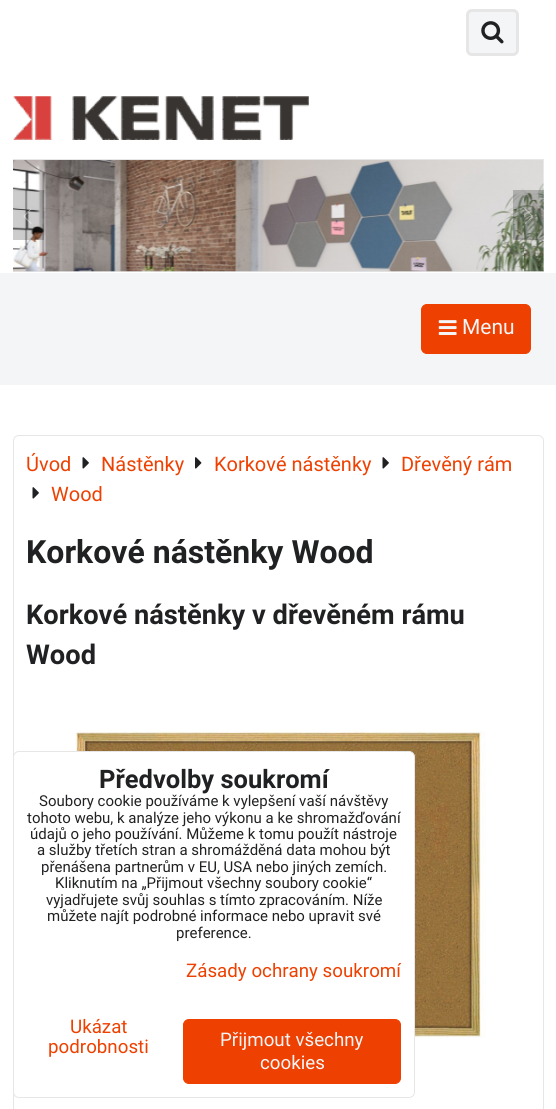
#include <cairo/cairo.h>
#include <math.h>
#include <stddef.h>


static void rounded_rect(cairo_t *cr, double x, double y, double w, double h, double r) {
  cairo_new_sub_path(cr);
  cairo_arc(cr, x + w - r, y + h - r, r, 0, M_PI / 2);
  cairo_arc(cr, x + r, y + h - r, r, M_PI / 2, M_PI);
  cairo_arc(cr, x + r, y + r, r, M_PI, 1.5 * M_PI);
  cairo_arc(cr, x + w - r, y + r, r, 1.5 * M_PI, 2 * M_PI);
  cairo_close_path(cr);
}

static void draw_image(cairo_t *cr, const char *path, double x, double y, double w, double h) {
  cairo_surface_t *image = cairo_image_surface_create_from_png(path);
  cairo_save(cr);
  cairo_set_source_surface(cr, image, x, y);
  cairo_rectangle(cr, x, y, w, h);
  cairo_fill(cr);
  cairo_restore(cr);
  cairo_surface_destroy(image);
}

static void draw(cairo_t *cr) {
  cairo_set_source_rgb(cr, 1, 1, 1);
  cairo_paint(cr);
  cairo_set_source_rgb(cr, 244 / 255.0, 245 / 255.0, 247 / 255.0);
  rounded_rect(cr, 467.5, 10.5, 50, 44, 4.5);
  cairo_fill_preserve(cr);
  cairo_set_source_rgb(cr, 230 / 255.0, 230 / 255.0, 230 / 255.0);
  cairo_set_line_width(cr, 3);
  cairo_stroke(cr);
  draw_image(cr, "images/1.png", 481, 21, 23, 23);
  draw_image(cr, "images/2.png", 13, 96, 296, 44);
  cairo_rectangle(cr, 13, 159, 531, 1);
  cairo_fill(cr);
  cairo_rectangle(cr, 13, 271, 531, 1);
  cairo_fill(cr);
  draw_image(cr, "images/3.png", 13, 160, 531, 112);
  cairo_set_source_rgba(cr, 0, 0, 0, 0.2);
  cairo_rectangle(cr, 13, 190, 31, 50);
  cairo_fill(cr);
  draw_image(cr, "images/4.png", 23, 208, 9, 16);
  cairo_rectangle(cr, 513, 190, 31, 50);
  cairo_fill(cr);
  draw_image(cr, "images/5.png", 525, 208, 8, 16);
  cairo_set_source_rgb(cr, 244 / 255.0, 245 / 255.0, 247 / 255.0);
  cairo_rectangle(cr, 0, 273, 556, 112);
  cairo_fill(cr);
  cairo_set_source_rgb(cr, 238 / 255.0, 65 / 255.0, 1 / 255.0);
  rounded_rect(cr, 421.5, 304.5, 109, 49, 5.5);
  cairo_fill_preserve(cr);
  cairo_set_line_width(cr, 1);
  cairo_stroke(cr);
  draw_image(cr, "images/6.png", 438, 320, 19, 15);
  rounded_rect(cr, 13.5, 435.5, 530, 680, 5.5);
  cairo_set_source_rgb(cr, 230 / 255.0, 230 / 255.0, 230 / 255.0);
  cairo_stroke(cr);
  draw_image(cr, "images/7.png", 82, 457, 7, 12);
  draw_image(cr, "images/8.png", 195, 457, 7, 12);
  draw_image(cr, "images/7.png", 382, 457, 7, 12);
  draw_image(cr, "images/7.png", 32, 487, 7, 12);
  draw_image(cr, "images/9.png", 75, 730, 411, 308);
  cairo_set_source_rgb(cr, 1, 1, 1);
  rounded_rect(cr, 13.5, 751.5, 401, 346, 5.5);
  cairo_fill_preserve(cr);
  cairo_set_source_rgb(cr, 230 / 255.0, 230 / 255.0, 230 / 255.0);
  cairo_stroke(cr);
  cairo_set_source_rgb(cr, 238 / 255.0, 65 / 255.0, 1 / 255.0);
  rounded_rect(cr, 183.5, 1019.5, 217, 64, 5.5);
  cairo_fill_preserve(cr);
  cairo_stroke(cr);
  cairo_select_font_face(cr, "Roboto", CAIRO_FONT_SLANT_NORMAL, CAIRO_FONT_WEIGHT_NORMAL);
  cairo_set_font_size(cr, 21);
  cairo_set_source_rgb(cr, 244 / 255.0, 245 / 255.0, 247 / 255.0);
  cairo_move_to(cr, 462, 334);
  cairo_show_text(cr, "Menu");
  cairo_set_font_size(cr, 20);
  cairo_set_source_rgb(cr, 238 / 255.0, 65 / 255.0, 1 / 255.0);
  cairo_move_to(cr, 26, 471);
  cairo_show_text(cr, "Úvod");
  cairo_move_to(cr, 101, 471);
  cairo_show_text(cr, "Nástěnky");
  cairo_move_to(cr, 214, 471);
  cairo_show_text(cr, "Korkové nástěnky");
  cairo_move_to(cr, 401, 471);
  cairo_show_text(cr, "Dřevěný rám");
  cairo_move_to(cr, 51, 501);
  cairo_show_text(cr, "Wood");
  cairo_select_font_face(cr, "Roboto", CAIRO_FONT_SLANT_NORMAL, CAIRO_FONT_WEIGHT_BOLD);
  cairo_set_font_size(cr, 32);
  cairo_set_source_rgb(cr, 32 / 255.0, 33 / 255.0, 35 / 255.0);
  cairo_move_to(cr, 26, 563);
  cairo_show_text(cr, "Korkové nástěnky Wood");
  cairo_set_font_size(cr, 27.25);
  cairo_move_to(cr, 26, 624);
  cairo_show_text(cr, "Korkové nástěnky v dřevěném rámu");
  cairo_move_to(cr, 26, 664);
  cairo_show_text(cr, "Wood");
  cairo_set_font_size(cr, 25.5);
  cairo_move_to(cr, 99, 788);
  cairo_show_text(cr, "Předvolby soukromí");
  cairo_select_font_face(cr, "Roboto", CAIRO_FONT_SLANT_NORMAL, CAIRO_FONT_WEIGHT_NORMAL);
  cairo_set_font_size(cr, 15);
  cairo_move_to(cr, 39, 806);
  cairo_show_text(cr, "Soubory cookie používáme k vylepšení vaší návštěvy");
  cairo_move_to(cr, 27, 823);
  cairo_show_text(cr, "tohoto webu, k analýze jeho výkonu a ke shromažďování");
  cairo_move_to(cr, 30, 839);
  cairo_show_text(cr, "údajů o jeho používání. Můžeme k tomu použít nástroje");
  cairo_move_to(cr, 37, 855);
  cairo_show_text(cr, "a služby třetích stran a shromážděná data mohou být");
  cairo_move_to(cr, 41, 872);
  cairo_show_text(cr, "přenášena partnerům v EU, USA nebo jiných zemích.");
  cairo_move_to(cr, 55, 888);
  cairo_show_text(cr, "Kliknutím na „Přijmout všechny soubory cookie“");
  cairo_move_to(cr, 46, 905);
  cairo_show_text(cr, "vyjadřujete svůj souhlas s tímto zpracováním. Níže");
  cairo_move_to(cr, 47, 921);
  cairo_show_text(cr, "můžete najít podrobné informace nebo upravit své");
  cairo_move_to(cr, 176, 938);
  cairo_show_text(cr, "preference.");
  cairo_set_font_size(cr, 18.75);
  cairo_set_source_rgb(cr, 238 / 255.0, 65 / 255.0, 1 / 255.0);
  cairo_move_to(cr, 186, 977);
  cairo_show_text(cr, "Zásady ochrany soukromí");
  cairo_move_to(cr, 70, 1033);
  cairo_show_text(cr, "Ukázat");
  cairo_move_to(cr, 48, 1053);
  cairo_show_text(cr, "podrobnosti");
  cairo_set_source_rgb(cr, 244 / 255.0, 245 / 255.0, 247 / 255.0);
  cairo_move_to(cr, 220, 1046);
  cairo_show_text(cr, "Přijmout všechny");
  cairo_move_to(cr, 260, 1069);
  cairo_show_text(cr, "cookies");
}

int main(void) {
  cairo_surface_t *surface = cairo_image_surface_create(CAIRO_FORMAT_RGB24, 556, 1109);
  cairo_t *cr = cairo_create(surface);
  cairo_font_options_t *options = cairo_font_options_create();
  cairo_font_options_set_hint_metrics(options, CAIRO_HINT_METRICS_OFF);
  cairo_font_options_set_hint_style(options, CAIRO_HINT_STYLE_NONE);
  cairo_set_font_options(cr, options);
  cairo_set_miter_limit(cr, 4);
  draw(cr);
  cairo_surface_write_to_png(surface, "out.png");
  cairo_font_options_destroy(options);
  cairo_destroy(cr);
  cairo_surface_destroy(surface);
  return 0;
}
